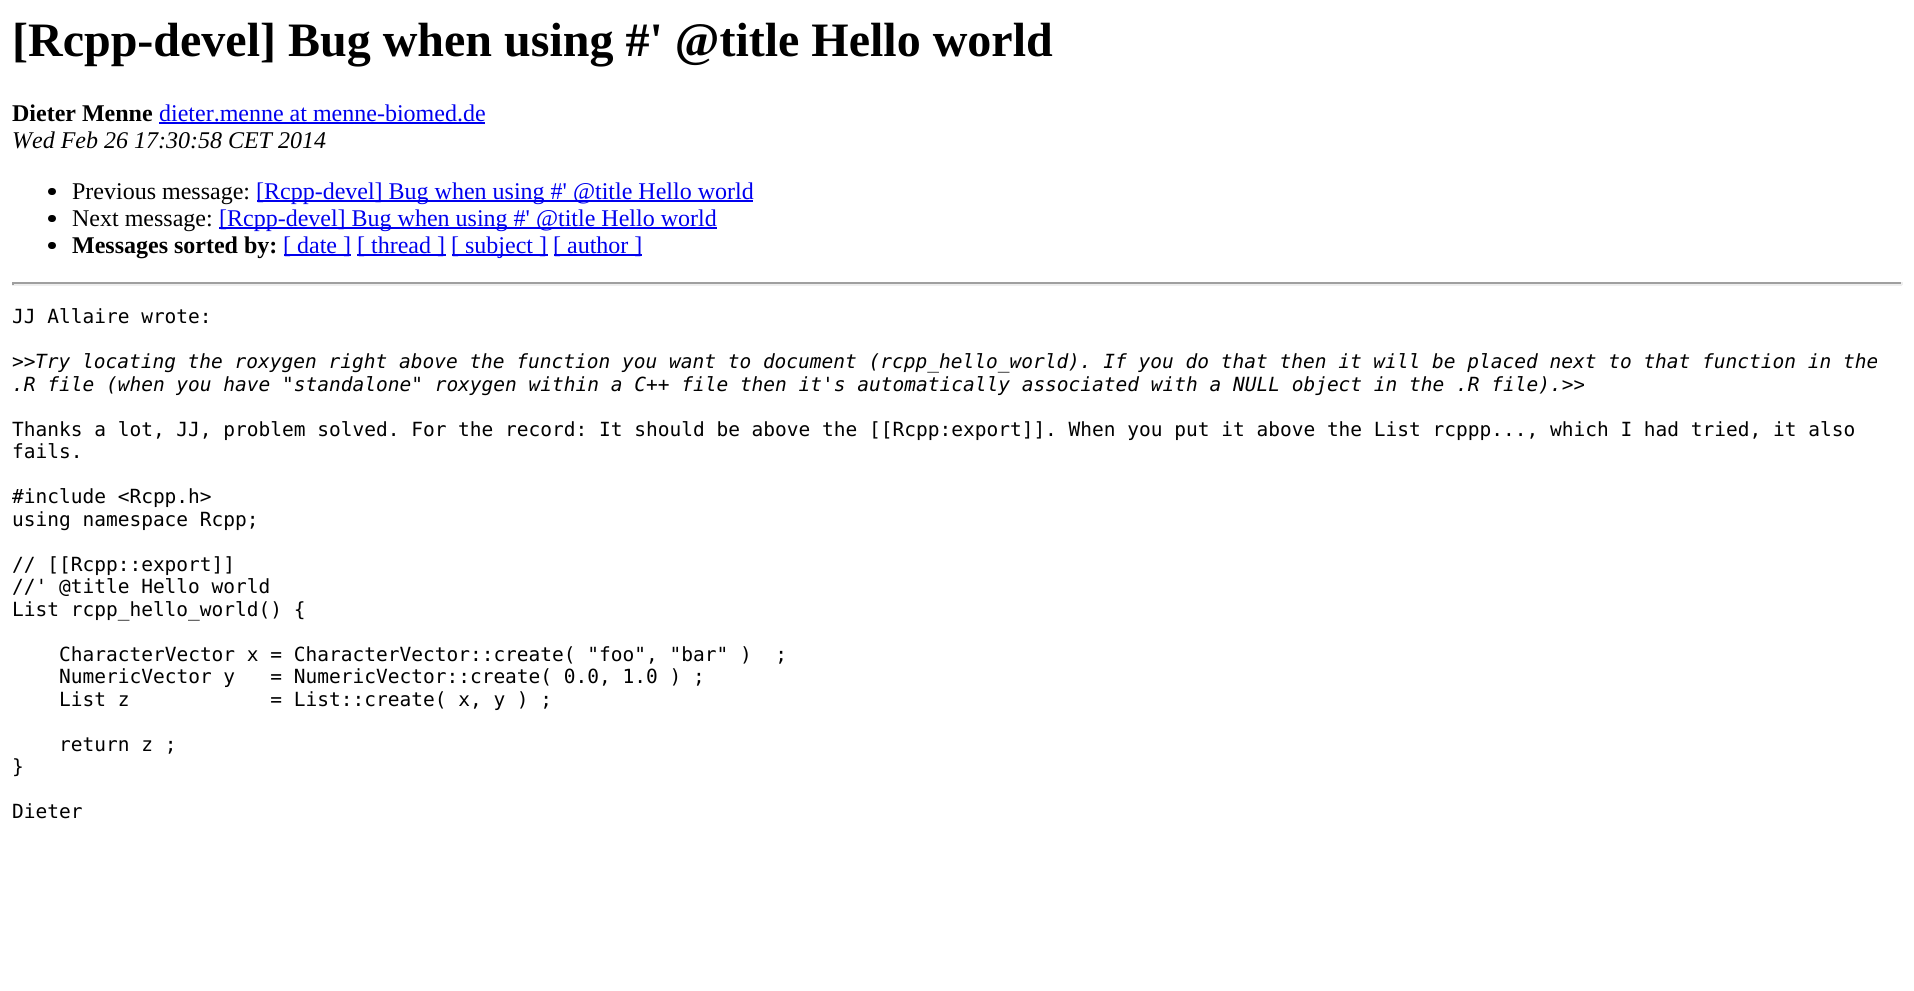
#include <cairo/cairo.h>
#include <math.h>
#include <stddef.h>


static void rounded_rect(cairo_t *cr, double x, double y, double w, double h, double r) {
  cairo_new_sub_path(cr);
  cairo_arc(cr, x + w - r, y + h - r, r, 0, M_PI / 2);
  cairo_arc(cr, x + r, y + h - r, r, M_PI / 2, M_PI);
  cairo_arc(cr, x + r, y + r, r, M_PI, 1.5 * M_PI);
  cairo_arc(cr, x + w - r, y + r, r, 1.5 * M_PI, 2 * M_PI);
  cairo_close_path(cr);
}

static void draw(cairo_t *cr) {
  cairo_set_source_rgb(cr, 1, 1, 1);
  cairo_paint(cr);
  cairo_set_source_rgb(cr, 0, 0, 238 / 255.0);
  cairo_rectangle(cr, 159, 122, 326, 2);
  cairo_fill(cr);
  cairo_set_source_rgb(cr, 0, 0, 0);
  rounded_rect(cr, 48, 188, 8, 7, 3.5);
  cairo_fill(cr);
  cairo_set_source_rgb(cr, 0, 0, 238 / 255.0);
  cairo_rectangle(cr, 257, 200, 496, 2);
  cairo_fill(cr);
  cairo_set_source_rgb(cr, 0, 0, 0);
  rounded_rect(cr, 48, 215, 8, 7, 3.5);
  cairo_fill(cr);
  cairo_set_source_rgb(cr, 0, 0, 238 / 255.0);
  cairo_rectangle(cr, 219, 227, 498, 2);
  cairo_fill(cr);
  cairo_set_source_rgb(cr, 0, 0, 0);
  rounded_rect(cr, 48, 242, 8, 7, 3.5);
  cairo_fill(cr);
  cairo_set_source_rgb(cr, 0, 0, 238 / 255.0);
  cairo_rectangle(cr, 284, 254, 67, 2);
  cairo_fill(cr);
  cairo_rectangle(cr, 357, 254, 89, 2);
  cairo_fill(cr);
  cairo_rectangle(cr, 452, 254, 96, 2);
  cairo_fill(cr);
  cairo_rectangle(cr, 554, 254, 88, 2);
  cairo_fill(cr);
  cairo_set_source_rgb(cr, 159 / 255.0, 159 / 255.0, 159 / 255.0);
  cairo_rectangle(cr, 12, 282, 1890, 2);
  cairo_fill(cr);
  cairo_set_source_rgb(cr, 238 / 255.0, 238 / 255.0, 238 / 255.0);
  cairo_rectangle(cr, 1901, 282, 2, 3);
  cairo_fill(cr);
  cairo_rectangle(cr, 12, 284, 1890, 2);
  cairo_fill(cr);
  cairo_set_source_rgb(cr, 159 / 255.0, 159 / 255.0, 159 / 255.0);
  cairo_rectangle(cr, 12, 282, 2, 3);
  cairo_fill(cr);
  cairo_select_font_face(cr, "Liberation Serif", CAIRO_FONT_SLANT_NORMAL, CAIRO_FONT_WEIGHT_BOLD);
  cairo_set_font_size(cr, 48);
  cairo_set_source_rgb(cr, 0, 0, 0);
  cairo_move_to(cr, 12, 56);
  cairo_show_text(cr, "[Rcpp-devel] Bug when using #' @title Hello world");
  cairo_set_font_size(cr, 24);
  cairo_move_to(cr, 12, 121);
  cairo_show_text(cr, "Dieter Menne");
  cairo_select_font_face(cr, "Liberation Serif", CAIRO_FONT_SLANT_NORMAL, CAIRO_FONT_WEIGHT_NORMAL);
  cairo_set_source_rgb(cr, 0, 0, 238 / 255.0);
  cairo_move_to(cr, 159, 121);
  cairo_show_text(cr, "dieter.menne at menne-biomed.de");
  cairo_select_font_face(cr, "Liberation Serif", CAIRO_FONT_SLANT_ITALIC, CAIRO_FONT_WEIGHT_NORMAL);
  cairo_set_source_rgb(cr, 0, 0, 0);
  cairo_move_to(cr, 12, 148);
  cairo_show_text(cr, "Wed Feb 26 17:30:58 CET 2014");
  cairo_select_font_face(cr, "Liberation Serif", CAIRO_FONT_SLANT_NORMAL, CAIRO_FONT_WEIGHT_NORMAL);
  cairo_move_to(cr, 72, 199);
  cairo_show_text(cr, "Previous message:");
  cairo_set_source_rgb(cr, 0, 0, 238 / 255.0);
  cairo_move_to(cr, 256, 199);
  cairo_show_text(cr, "[Rcpp-devel] Bug when using #' @title Hello world");
  cairo_set_source_rgb(cr, 0, 0, 0);
  cairo_move_to(cr, 72, 226);
  cairo_show_text(cr, "Next message:");
  cairo_set_source_rgb(cr, 0, 0, 238 / 255.0);
  cairo_move_to(cr, 219, 226);
  cairo_show_text(cr, "[Rcpp-devel] Bug when using #' @title Hello world");
  cairo_select_font_face(cr, "Liberation Serif", CAIRO_FONT_SLANT_NORMAL, CAIRO_FONT_WEIGHT_BOLD);
  cairo_set_source_rgb(cr, 0, 0, 0);
  cairo_move_to(cr, 72, 253);
  cairo_show_text(cr, "Messages sorted by:");
  cairo_select_font_face(cr, "Liberation Serif", CAIRO_FONT_SLANT_NORMAL, CAIRO_FONT_WEIGHT_NORMAL);
  cairo_set_source_rgb(cr, 0, 0, 238 / 255.0);
  cairo_move_to(cr, 283, 253);
  cairo_show_text(cr, "[ date ]");
  cairo_move_to(cr, 357, 253);
  cairo_show_text(cr, "[ thread ]");
  cairo_move_to(cr, 451, 253);
  cairo_show_text(cr, "[ subject ]");
  cairo_move_to(cr, 553, 253);
  cairo_show_text(cr, "[ author ]");
  cairo_select_font_face(cr, "DejaVu Sans Mono", CAIRO_FONT_SLANT_NORMAL, CAIRO_FONT_WEIGHT_NORMAL);
  cairo_set_font_size(cr, 19.5);
  cairo_set_source_rgb(cr, 0, 0, 0);
  cairo_move_to(cr, 12, 323);
  cairo_show_text(cr, "JJ Allaire wrote:");
  cairo_move_to(cr, 12, 368);
  cairo_show_text(cr, ">>");
  cairo_select_font_face(cr, "DejaVu Sans Mono", CAIRO_FONT_SLANT_ITALIC, CAIRO_FONT_WEIGHT_NORMAL);
  cairo_move_to(cr, 35, 368);
  cairo_show_text(cr, "Try locating the roxygen right above the function you want to document (rcpp_hello_world). If you do that then it will be placed next to that function in the");
  cairo_move_to(cr, 12, 391);
  cairo_show_text(cr, ".R file (when you have \"standalone\" roxygen within a C++ file then it's automatically associated with a NULL object in the .R file).>>");
  cairo_select_font_face(cr, "DejaVu Sans Mono", CAIRO_FONT_SLANT_NORMAL, CAIRO_FONT_WEIGHT_NORMAL);
  cairo_move_to(cr, 12, 436);
  cairo_show_text(cr, "Thanks a lot, JJ, problem solved. For the record: It should be above the [[Rcpp:export]]. When you put it above the List rcppp..., which I had tried, it also");
  cairo_move_to(cr, 12, 458);
  cairo_show_text(cr, "fails.");
  cairo_move_to(cr, 12, 503);
  cairo_show_text(cr, "#include <Rcpp.h>");
  cairo_move_to(cr, 12, 526);
  cairo_show_text(cr, "using namespace Rcpp;");
  cairo_move_to(cr, 12, 571);
  cairo_show_text(cr, "// [[Rcpp::export]]");
  cairo_move_to(cr, 12, 593);
  cairo_show_text(cr, "//' @title Hello world");
  cairo_move_to(cr, 12, 616);
  cairo_show_text(cr, "List rcpp_hello_world() {");
  cairo_move_to(cr, 59, 661);
  cairo_show_text(cr, "CharacterVector x = CharacterVector::create( \"foo\", \"bar\" )  ;");
  cairo_move_to(cr, 59, 683);
  cairo_show_text(cr, "NumericVector y   = NumericVector::create( 0.0, 1.0 ) ;");
  cairo_move_to(cr, 59, 706);
  cairo_show_text(cr, "List z            = List::create( x, y ) ;");
  cairo_move_to(cr, 59, 751);
  cairo_show_text(cr, "return z ;");
  cairo_move_to(cr, 12, 773);
  cairo_show_text(cr, "}");
  cairo_move_to(cr, 12, 818);
  cairo_show_text(cr, "Dieter");
}

int main(void) {
  cairo_surface_t *surface = cairo_image_surface_create(CAIRO_FORMAT_RGB24, 1914, 991);
  cairo_t *cr = cairo_create(surface);
  cairo_font_options_t *options = cairo_font_options_create();
  cairo_font_options_set_hint_metrics(options, CAIRO_HINT_METRICS_OFF);
  cairo_font_options_set_hint_style(options, CAIRO_HINT_STYLE_NONE);
  cairo_set_font_options(cr, options);
  cairo_set_miter_limit(cr, 4);
  draw(cr);
  cairo_surface_write_to_png(surface, "out.png");
  cairo_font_options_destroy(options);
  cairo_destroy(cr);
  cairo_surface_destroy(surface);
  return 0;
}
